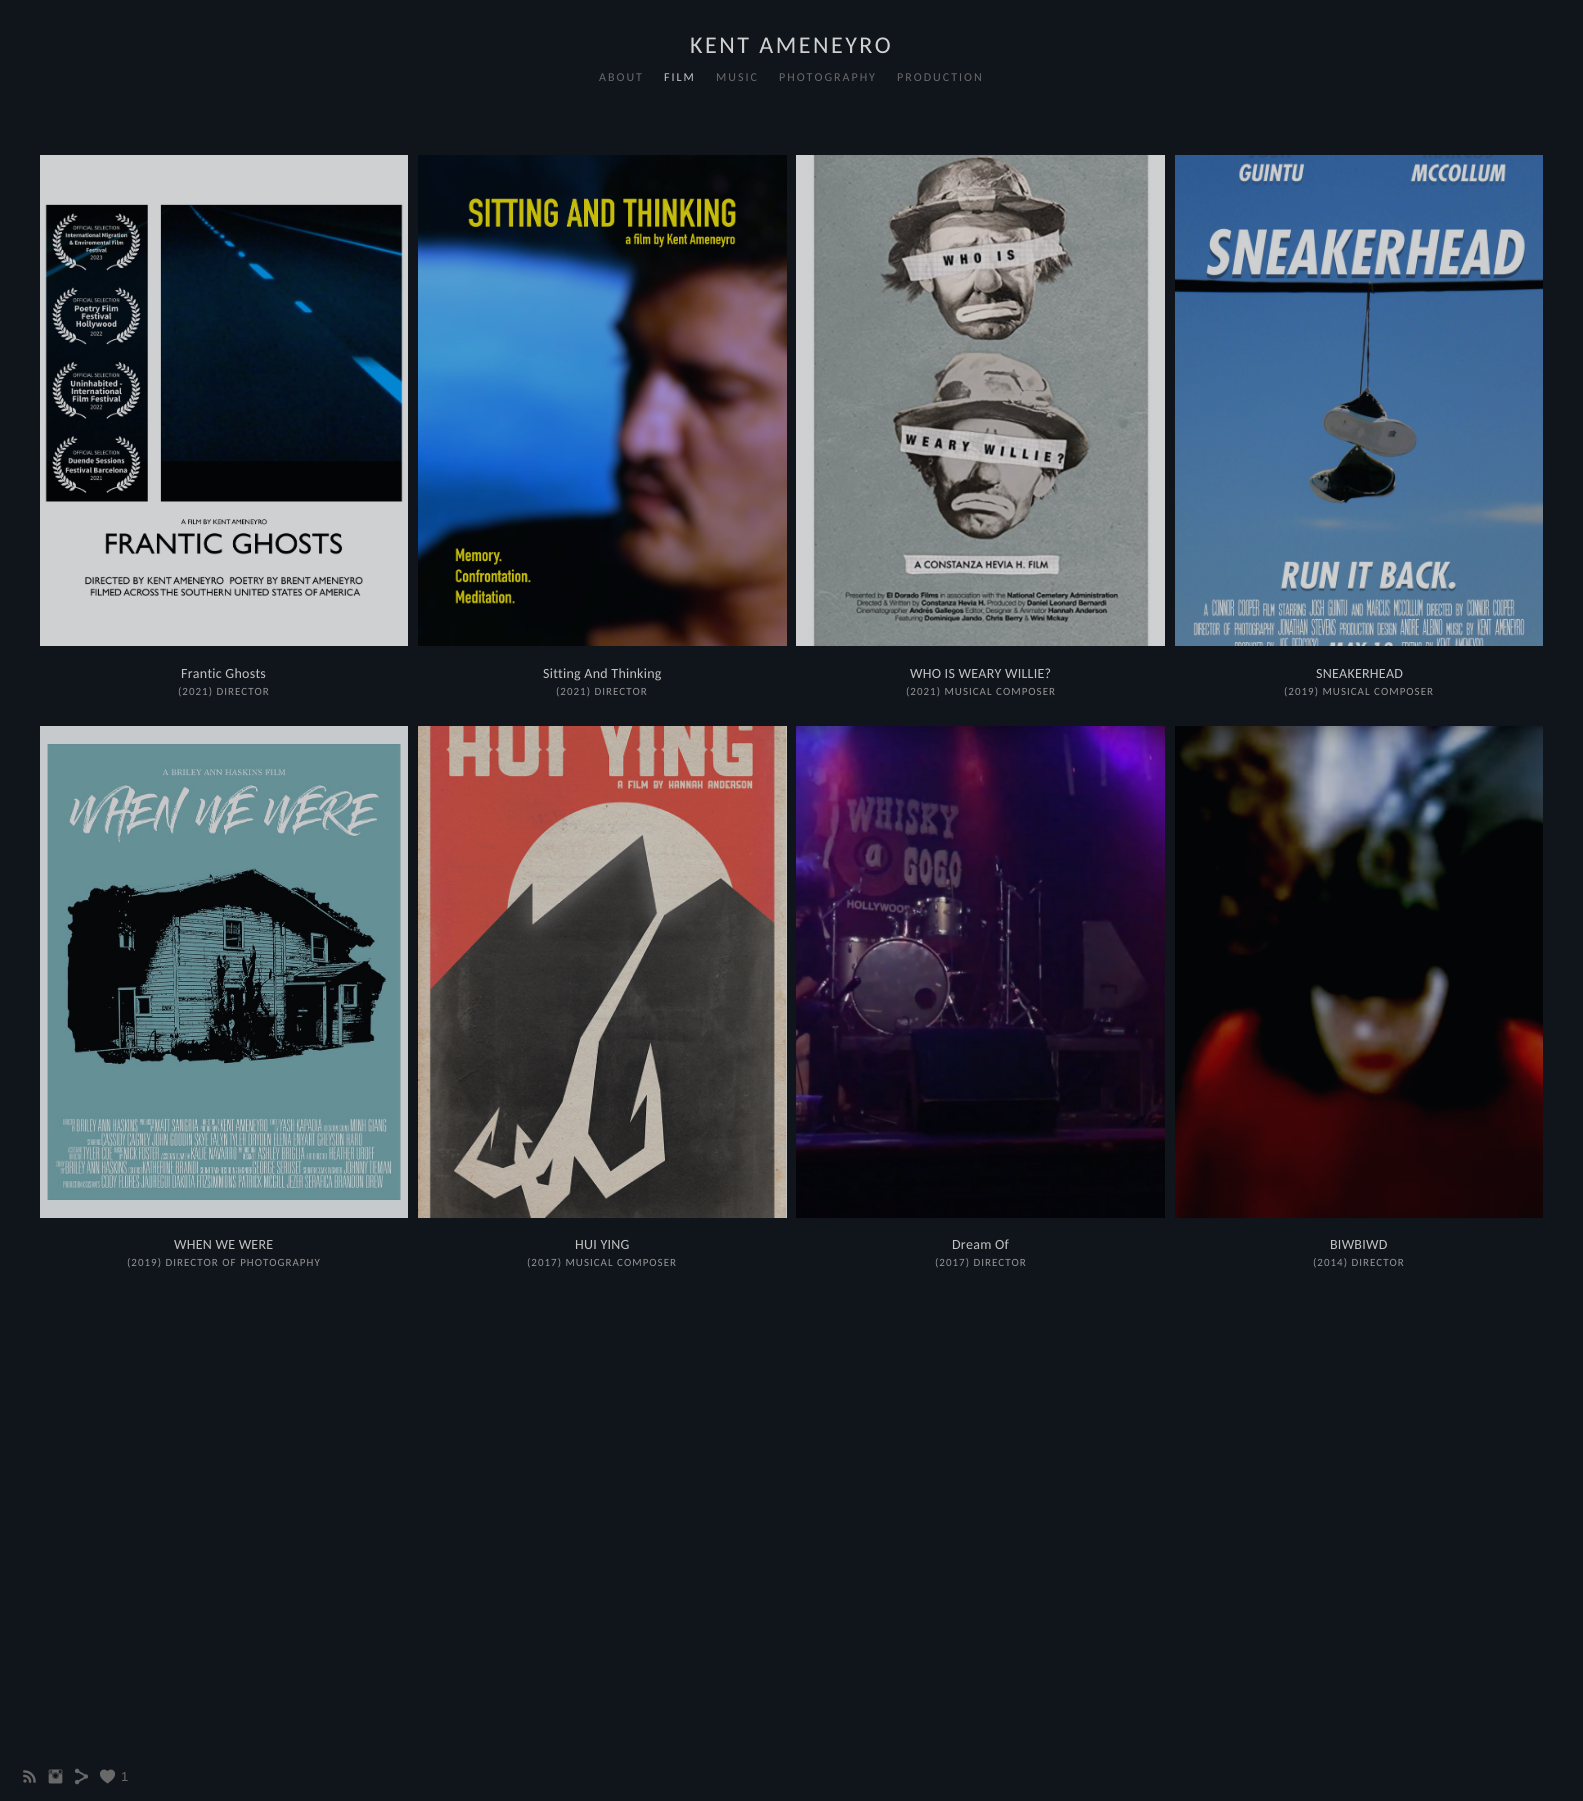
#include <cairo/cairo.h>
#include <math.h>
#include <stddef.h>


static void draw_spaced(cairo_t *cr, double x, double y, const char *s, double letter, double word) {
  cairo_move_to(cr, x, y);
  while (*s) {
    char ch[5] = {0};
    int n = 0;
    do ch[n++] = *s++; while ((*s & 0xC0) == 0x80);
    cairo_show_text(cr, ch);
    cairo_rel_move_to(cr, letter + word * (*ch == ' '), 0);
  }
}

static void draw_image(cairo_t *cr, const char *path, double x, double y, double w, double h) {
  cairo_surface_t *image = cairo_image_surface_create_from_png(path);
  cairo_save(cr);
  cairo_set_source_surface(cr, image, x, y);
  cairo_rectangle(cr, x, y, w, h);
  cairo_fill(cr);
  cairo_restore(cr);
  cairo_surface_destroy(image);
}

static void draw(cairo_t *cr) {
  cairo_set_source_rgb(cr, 16 / 255.0, 21 / 255.0, 28 / 255.0);
  cairo_paint(cr);
  draw_image(cr, "images/1.png", 40, 155, 368, 491);
  draw_image(cr, "images/2.png", 418, 155, 369, 491);
  draw_image(cr, "images/3.png", 796, 155, 369, 491);
  draw_image(cr, "images/4.png", 1175, 155, 368, 491);
  draw_image(cr, "images/5.png", 40, 726, 368, 492);
  draw_image(cr, "images/6.png", 418, 726, 369, 492);
  draw_image(cr, "images/7.png", 796, 726, 369, 492);
  draw_image(cr, "images/8.png", 1175, 726, 368, 492);
  draw_image(cr, "images/9.png", 23, 1770, 13, 13);
  draw_image(cr, "images/10.png", 48, 1769, 15, 15);
  draw_image(cr, "images/11.png", 74, 1768, 15, 17);
  draw_image(cr, "images/12.png", 100, 1769, 16, 15);
  cairo_select_font_face(cr, "Carlito", CAIRO_FONT_SLANT_NORMAL, CAIRO_FONT_WEIGHT_NORMAL);
  cairo_set_font_size(cr, 24);
  cairo_set_source_rgb(cr, 209 / 255.0, 209 / 255.0, 209 / 255.0);
  draw_spaced(cr, 690, 53, "KENT AMENEYRO", 2.5, 0);
  cairo_set_font_size(cr, 12);
  cairo_set_source_rgb(cr, 105 / 255.0, 105 / 255.0, 105 / 255.0);
  draw_spaced(cr, 599, 81, "ABOUT", 2, 0);
  cairo_set_source_rgb(cr, 194 / 255.0, 194 / 255.0, 194 / 255.0);
  draw_spaced(cr, 664, 81, "FILM", 2, 0);
  cairo_set_source_rgb(cr, 105 / 255.0, 105 / 255.0, 105 / 255.0);
  draw_spaced(cr, 716, 81, "MUSIC", 2, 0);
  draw_spaced(cr, 779, 81, "PHOTOGRAPHY", 2, 0);
  draw_spaced(cr, 897, 81, "PRODUCTION", 2, 0);
  cairo_set_font_size(cr, 14);
  cairo_set_source_rgb(cr, 194 / 255.0, 194 / 255.0, 194 / 255.0);
  draw_spaced(cr, 181, 678, "Frantic Ghosts", 0.25, 0);
  cairo_set_font_size(cr, 11);
  cairo_set_source_rgb(cr, 148 / 255.0, 148 / 255.0, 148 / 255.0);
  draw_spaced(cr, 178, 695, "(2021) DIRECTOR", 1, 0);
  cairo_set_font_size(cr, 14);
  cairo_set_source_rgb(cr, 194 / 255.0, 194 / 255.0, 194 / 255.0);
  draw_spaced(cr, 543, 678, "Sitting And Thinking", 0.25, 0);
  cairo_set_font_size(cr, 11);
  cairo_set_source_rgb(cr, 148 / 255.0, 148 / 255.0, 148 / 255.0);
  draw_spaced(cr, 556, 695, "(2021) DIRECTOR", 1, 0);
  cairo_set_font_size(cr, 14);
  cairo_set_source_rgb(cr, 194 / 255.0, 194 / 255.0, 194 / 255.0);
  draw_spaced(cr, 910, 678, "WHO IS WEARY WILLIE?", 0.25, 0);
  cairo_set_font_size(cr, 11);
  cairo_set_source_rgb(cr, 148 / 255.0, 148 / 255.0, 148 / 255.0);
  draw_spaced(cr, 906, 695, "(2021) MUSICAL COMPOSER", 1, 0);
  cairo_set_font_size(cr, 14);
  cairo_set_source_rgb(cr, 194 / 255.0, 194 / 255.0, 194 / 255.0);
  draw_spaced(cr, 1316, 678, "SNEAKERHEAD", 0.25, 0);
  cairo_set_font_size(cr, 11);
  cairo_set_source_rgb(cr, 148 / 255.0, 148 / 255.0, 148 / 255.0);
  draw_spaced(cr, 1284, 695, "(2019) MUSICAL COMPOSER", 1, 0);
  cairo_set_font_size(cr, 14);
  cairo_set_source_rgb(cr, 194 / 255.0, 194 / 255.0, 194 / 255.0);
  draw_spaced(cr, 174, 1249, "WHEN WE WERE", 0.25, 0);
  cairo_set_font_size(cr, 11);
  cairo_set_source_rgb(cr, 148 / 255.0, 148 / 255.0, 148 / 255.0);
  draw_spaced(cr, 127, 1266, "(2019) DIRECTOR OF PHOTOGRAPHY", 1, 0);
  cairo_set_font_size(cr, 14);
  cairo_set_source_rgb(cr, 194 / 255.0, 194 / 255.0, 194 / 255.0);
  draw_spaced(cr, 575, 1249, "HUI YING", 0.25, 0);
  cairo_set_font_size(cr, 11);
  cairo_set_source_rgb(cr, 148 / 255.0, 148 / 255.0, 148 / 255.0);
  draw_spaced(cr, 527, 1266, "(2017) MUSICAL COMPOSER", 1, 0);
  cairo_set_font_size(cr, 14);
  cairo_set_source_rgb(cr, 194 / 255.0, 194 / 255.0, 194 / 255.0);
  draw_spaced(cr, 952, 1249, "Dream Of", 0.25, 0);
  cairo_set_font_size(cr, 11);
  cairo_set_source_rgb(cr, 148 / 255.0, 148 / 255.0, 148 / 255.0);
  draw_spaced(cr, 935, 1266, "(2017) DIRECTOR", 1, 0);
  cairo_set_font_size(cr, 14);
  cairo_set_source_rgb(cr, 194 / 255.0, 194 / 255.0, 194 / 255.0);
  draw_spaced(cr, 1330, 1249, "BIWBIWD", 0.25, 0);
  cairo_set_font_size(cr, 11);
  cairo_set_source_rgb(cr, 148 / 255.0, 148 / 255.0, 148 / 255.0);
  draw_spaced(cr, 1313, 1266, "(2014) DIRECTOR", 1, 0);
  cairo_select_font_face(cr, "Liberation Sans", CAIRO_FONT_SLANT_NORMAL, CAIRO_FONT_WEIGHT_NORMAL);
  cairo_set_font_size(cr, 13);
  cairo_set_source_rgb(cr, 105 / 255.0, 105 / 255.0, 105 / 255.0);
  cairo_move_to(cr, 121, 1781);
  cairo_show_text(cr, "1");
}

int main(void) {
  cairo_surface_t *surface = cairo_image_surface_create(CAIRO_FORMAT_RGB24, 1583, 1801);
  cairo_t *cr = cairo_create(surface);
  cairo_font_options_t *options = cairo_font_options_create();
  cairo_font_options_set_hint_metrics(options, CAIRO_HINT_METRICS_OFF);
  cairo_font_options_set_hint_style(options, CAIRO_HINT_STYLE_NONE);
  cairo_set_font_options(cr, options);
  cairo_set_miter_limit(cr, 4);
  draw(cr);
  cairo_surface_write_to_png(surface, "out.png");
  cairo_font_options_destroy(options);
  cairo_destroy(cr);
  cairo_surface_destroy(surface);
  return 0;
}
